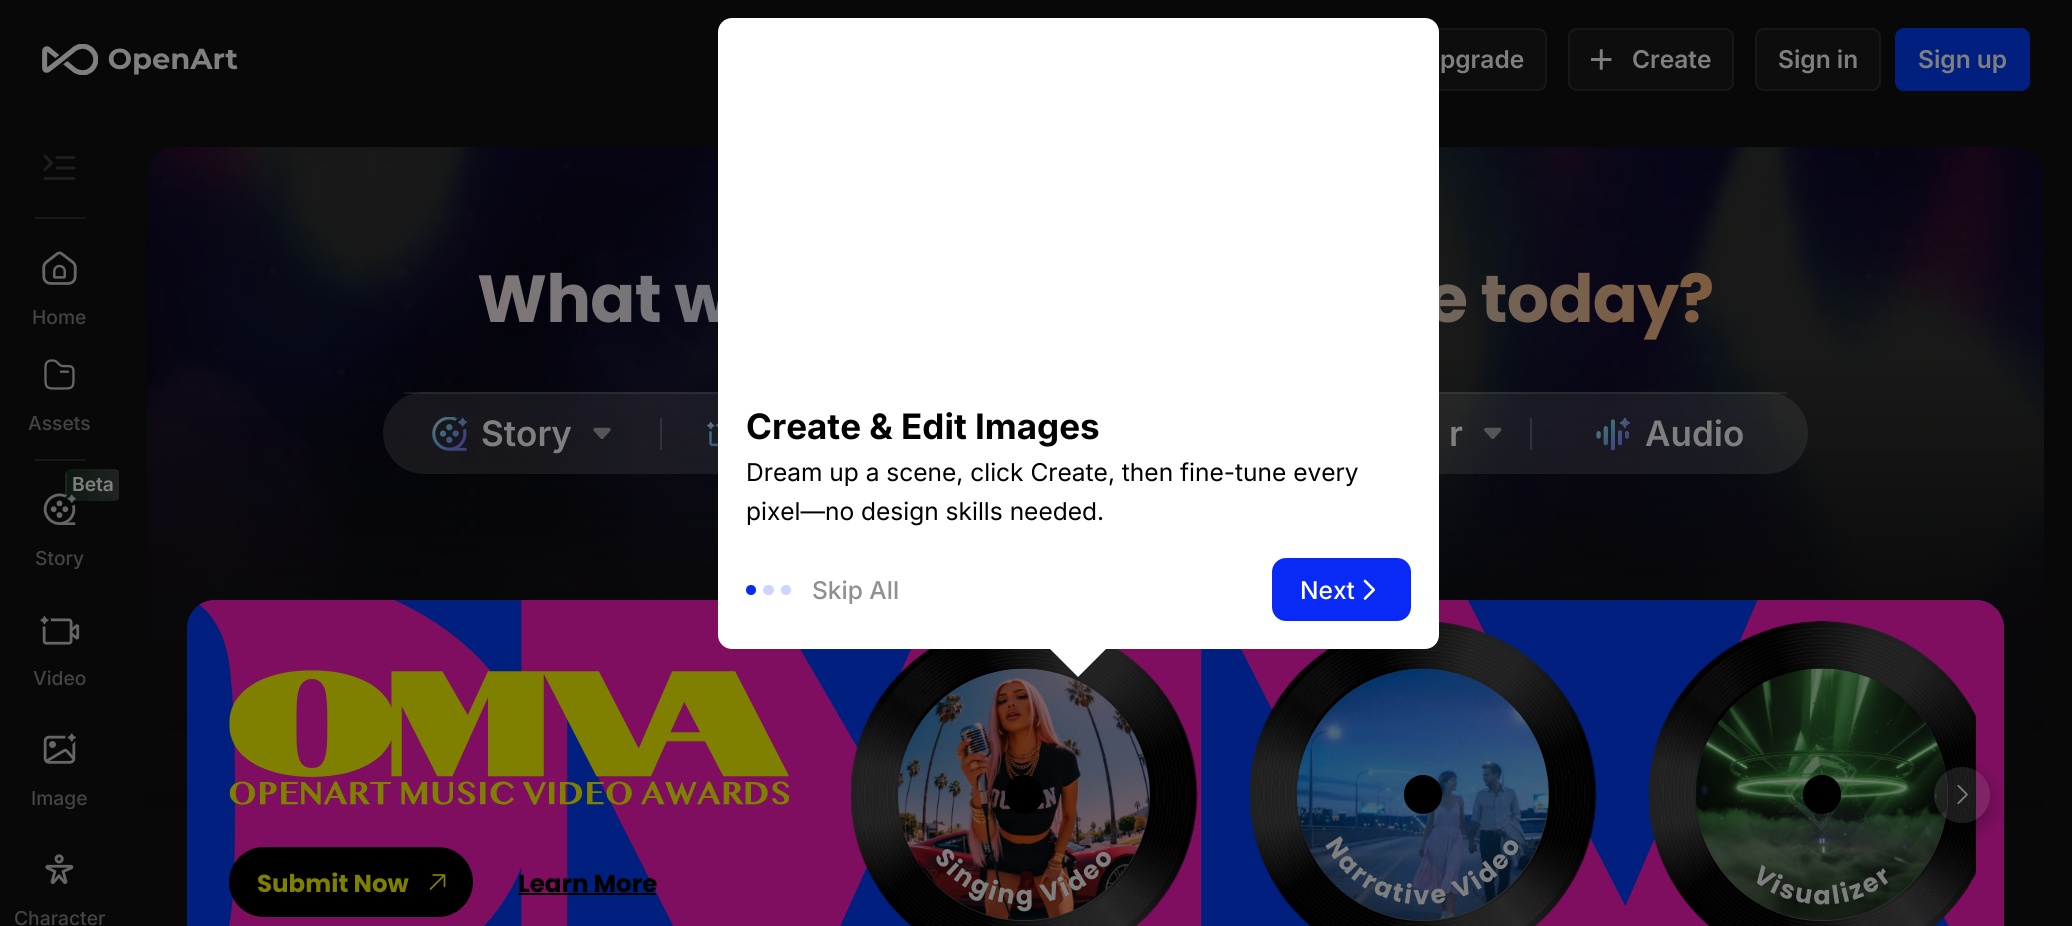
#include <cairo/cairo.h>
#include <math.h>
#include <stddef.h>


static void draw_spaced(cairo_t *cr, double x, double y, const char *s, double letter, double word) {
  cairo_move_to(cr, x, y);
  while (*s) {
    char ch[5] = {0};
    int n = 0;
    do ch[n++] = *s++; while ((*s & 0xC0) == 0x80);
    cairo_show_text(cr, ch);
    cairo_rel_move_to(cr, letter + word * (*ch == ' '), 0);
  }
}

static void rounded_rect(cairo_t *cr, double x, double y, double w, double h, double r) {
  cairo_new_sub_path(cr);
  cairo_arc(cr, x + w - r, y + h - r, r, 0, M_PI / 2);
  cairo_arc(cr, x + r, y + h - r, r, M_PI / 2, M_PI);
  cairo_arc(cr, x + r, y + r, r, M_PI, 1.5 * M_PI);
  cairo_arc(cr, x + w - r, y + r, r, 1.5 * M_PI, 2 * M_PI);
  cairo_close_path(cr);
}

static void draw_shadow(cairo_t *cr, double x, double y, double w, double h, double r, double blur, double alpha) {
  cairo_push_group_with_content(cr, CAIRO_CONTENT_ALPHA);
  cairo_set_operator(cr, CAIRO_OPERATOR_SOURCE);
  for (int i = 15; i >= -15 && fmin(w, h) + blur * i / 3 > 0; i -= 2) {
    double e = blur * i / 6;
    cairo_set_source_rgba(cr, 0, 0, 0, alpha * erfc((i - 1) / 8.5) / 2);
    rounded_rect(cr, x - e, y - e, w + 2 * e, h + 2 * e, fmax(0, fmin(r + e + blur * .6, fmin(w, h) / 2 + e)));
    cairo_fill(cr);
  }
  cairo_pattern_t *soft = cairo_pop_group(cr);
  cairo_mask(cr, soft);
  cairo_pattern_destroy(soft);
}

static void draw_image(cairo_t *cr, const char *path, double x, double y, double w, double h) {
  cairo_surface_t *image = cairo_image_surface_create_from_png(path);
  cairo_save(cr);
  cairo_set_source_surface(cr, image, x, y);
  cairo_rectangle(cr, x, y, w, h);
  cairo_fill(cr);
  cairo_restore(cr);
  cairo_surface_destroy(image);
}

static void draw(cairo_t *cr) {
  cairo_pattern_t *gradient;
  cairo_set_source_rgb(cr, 16 / 255.0, 16 / 255.0, 16 / 255.0);
  cairo_paint(cr);
  draw_image(cr, "images/1.png", 42, 44, 196, 31);
  cairo_set_source_rgb(cr, 26 / 255.0, 26 / 255.0, 26 / 255.0);
  rounded_rect(cr, 1399, 29, 147, 61, 8);
  cairo_fill_preserve(cr);
  cairo_set_source_rgb(cr, 46 / 255.0, 46 / 255.0, 46 / 255.0);
  cairo_stroke(cr);
  cairo_set_source_rgb(cr, 26 / 255.0, 26 / 255.0, 26 / 255.0);
  rounded_rect(cr, 1569, 29, 164, 61, 8);
  cairo_fill_preserve(cr);
  cairo_set_source_rgb(cr, 46 / 255.0, 46 / 255.0, 46 / 255.0);
  cairo_stroke(cr);
  draw_image(cr, "images/2.png", 1591, 49, 21, 21);
  cairo_set_source_rgb(cr, 26 / 255.0, 26 / 255.0, 26 / 255.0);
  rounded_rect(cr, 1756, 29, 124, 61, 8);
  cairo_fill_preserve(cr);
  cairo_set_source_rgb(cr, 46 / 255.0, 46 / 255.0, 46 / 255.0);
  cairo_stroke(cr);
  cairo_set_source_rgb(cr, 1 / 255.0, 63 / 255.0, 254 / 255.0);
  rounded_rect(cr, 1896, 29, 133, 61, 8);
  cairo_fill_preserve(cr);
  cairo_stroke(cr);
  cairo_new_path(cr);
  cairo_move_to(cr, 57, 168);
  cairo_line_to(cr, 74, 168);
  cairo_move_to(cr, 57, 157.5);
  cairo_line_to(cr, 74, 157.5);
  cairo_move_to(cr, 45, 178.5);
  cairo_line_to(cr, 74, 178.5);
  cairo_move_to(cr, 45, 156);
  cairo_line_to(cr, 51.5, 163);
  cairo_line_to(cr, 45, 169.5);
  cairo_set_source_rgb(cr, 64 / 255.0, 64 / 255.0, 64 / 255.0);
  cairo_set_line_width(cr, 2.8);
  cairo_set_line_cap(cr, CAIRO_LINE_CAP_ROUND);
  cairo_set_line_join(cr, CAIRO_LINE_JOIN_ROUND);
  cairo_stroke(cr);
  cairo_set_source_rgb(cr, 46 / 255.0, 46 / 255.0, 46 / 255.0);
  cairo_rectangle(cr, 35, 217, 51, 2);
  cairo_fill(cr);
  draw_image(cr, "images/3.png", 42, 251, 35, 34);
  draw_image(cr, "images/4.png", 44, 359, 31, 31);
  cairo_rectangle(cr, 35, 459, 51, 2);
  cairo_fill(cr);
  cairo_save(cr);
  rounded_rect(cr, 65, 469, 56, 32, 7);
  cairo_clip(cr);
  gradient = cairo_pattern_create_linear(122, 460, 62, 452);
  cairo_pattern_add_color_stop_rgba(gradient, 0, 71 / 255.0, 71 / 255.0, 71 / 255.0, 1);
  cairo_pattern_add_color_stop_rgba(gradient, 1, 23 / 255.0, 52 / 255.0, 33 / 255.0, 1);
  cairo_set_source(cr, gradient);
  cairo_pattern_destroy(gradient);
  cairo_rectangle(cr, 67, 469, 52, 2);
  cairo_fill(cr);
  cairo_restore(cr);
  draw_image(cr, "images/5.png", 43, 493, 33, 32);
  cairo_save(cr);
  rounded_rect(cr, 65, 469, 56, 32, 7);
  cairo_clip(cr);
  gradient = cairo_pattern_create_linear(69, 488, 10, 480);
  cairo_pattern_add_color_stop_rgba(gradient, 0, 1, 1, 1, 0.23);
  cairo_pattern_add_color_stop_rgba(gradient, 1, 64 / 255.0, 1, 131 / 255.0, 0.15);
  cairo_set_source(cr, gradient);
  cairo_pattern_destroy(gradient);
  cairo_rectangle(cr, 65, 471, 2, 28);
  cairo_fill(cr);
  cairo_restore(cr);
  gradient = cairo_pattern_create_linear(122, 488, 62, 480);
  cairo_pattern_add_color_stop_rgba(gradient, 0, 1, 1, 1, 0.23);
  cairo_pattern_add_color_stop_rgba(gradient, 1, 64 / 255.0, 1, 131 / 255.0, 0.15);
  cairo_set_source(cr, gradient);
  cairo_pattern_destroy(gradient);
  cairo_rectangle(cr, 67, 471, 52, 28);
  cairo_fill(cr);
  cairo_save(cr);
  rounded_rect(cr, 65, 469, 56, 32, 7);
  cairo_clip(cr);
  gradient = cairo_pattern_create_linear(122, 516, 62, 508);
  cairo_pattern_add_color_stop_rgba(gradient, 0, 1, 1, 1, 0.23);
  cairo_pattern_add_color_stop_rgba(gradient, 1, 64 / 255.0, 1, 131 / 255.0, 0.15);
  cairo_set_source(cr, gradient);
  cairo_pattern_destroy(gradient);
  cairo_rectangle(cr, 67, 499, 52, 2);
  cairo_fill(cr);
  cairo_restore(cr);
  draw_image(cr, "images/6.png", 40, 616, 40, 29);
  draw_image(cr, "images/7.png", 43, 733, 33, 31);
  draw_image(cr, "images/8.png", 45, 854, 29, 31);
  draw_image(cr, "images/9.png", 147, 147, 1897, 700);
  gradient = cairo_pattern_create_linear(1096, 357, 1096, 847);
  cairo_pattern_add_color_stop_rgba(gradient, 0, 16 / 255.0, 16 / 255.0, 16 / 255.0, 0);
  cairo_pattern_add_color_stop_rgba(gradient, 0.5, 16 / 255.0, 16 / 255.0, 16 / 255.0, 0.8);
  cairo_pattern_add_color_stop_rgba(gradient, 1, 16 / 255.0, 16 / 255.0, 16 / 255.0, 1);
  cairo_set_source(cr, gradient);
  cairo_pattern_destroy(gradient);
  cairo_new_path(cr);
  cairo_move_to(cr, 147, 357);
  cairo_line_to(cr, 2044, 357);
  cairo_line_to(cr, 2044, 819);
  cairo_curve_to(cr, 2044, 834.5, 2031.5, 847, 2016, 847);
  cairo_line_to(cr, 175, 847);
  cairo_curve_to(cr, 159.5, 847, 147, 834.5, 147, 819);
  cairo_close_path(cr);
  cairo_fill(cr);
  cairo_set_source_rgba(cr, 1, 1, 1, 0.15);
  rounded_rect(cr, 383, 392, 1425, 82, 41);
  cairo_fill(cr);
  cairo_rectangle(cr, 404, 392, 1383, 2);
  cairo_fill(cr);
  draw_image(cr, "images/10.png", 432, 417, 35, 34);
  draw_image(cr, "images/11.png", 593, 427, 18, 12);
  cairo_rectangle(cr, 660, 418, 2, 32);
  cairo_fill(cr);
  cairo_set_source_rgba(cr, 145 / 255.0, 158 / 255.0, 171 / 255.0, 0.24);
  cairo_rectangle(cr, 660, 418, 2, 32);
  cairo_fill(cr);
  draw_image(cr, "images/12.png", 707, 421, 11, 26);
  draw_image(cr, "images/13.png", 1484, 427, 18, 13);
  cairo_set_source_rgb(cr, 97 / 255.0, 101 / 255.0, 117 / 255.0);
  cairo_rectangle(cr, 1530, 418, 2, 32);
  cairo_fill(cr);
  draw_image(cr, "images/14.png", 1596, 417, 34, 34);
  draw_image(cr, "images/15.png", 187, 600, 1817, 326);
  draw_image(cr, "images/16.png", 851, 649, 347, 277);
  cairo_arc(cr, 1024, 795, 124.5, 0, 2 * M_PI);
  cairo_set_source_rgb(cr, 102 / 255.0, 102 / 255.0, 102 / 255.0);
  cairo_set_line_width(cr, 3);
  cairo_set_line_cap(cr, CAIRO_LINE_CAP_BUTT);
  cairo_set_line_join(cr, CAIRO_LINE_JOIN_MITER);
  cairo_stroke(cr);
  draw_image(cr, "images/17.png", 897, 668, 253, 253);
  draw_image(cr, "images/18.png", 936, 849, 175, 63);
  cairo_set_source_rgb(cr, 0, 0, 0);
  rounded_rect(cr, 1006.5, 776.5, 35, 36, 17.5);
  cairo_fill_preserve(cr);
  cairo_stroke(cr);
  draw_image(cr, "images/19.png", 1250, 621, 347, 305);
  cairo_arc(cr, 1423, 795, 124.5, 0, 2 * M_PI);
  cairo_set_source_rgb(cr, 102 / 255.0, 102 / 255.0, 102 / 255.0);
  cairo_stroke(cr);
  draw_image(cr, "images/20.png", 1296, 668, 253, 253);
  draw_image(cr, "images/21.png", 1325, 836, 194, 69);
  cairo_set_source_rgb(cr, 0, 0, 0);
  rounded_rect(cr, 1405.5, 776.5, 35, 36, 17.5);
  cairo_fill_preserve(cr);
  cairo_stroke(cr);
  draw_image(cr, "images/22.png", 1649, 621, 327, 305);
  cairo_arc(cr, 1822, 795, 124.5, 0, 2 * M_PI);
  cairo_set_source_rgb(cr, 102 / 255.0, 102 / 255.0, 102 / 255.0);
  cairo_stroke(cr);
  draw_image(cr, "images/23.png", 1695, 668, 253, 253);
  draw_image(cr, "images/24.png", 1756, 864, 133, 41);
  cairo_set_source_rgb(cr, 0, 0, 0);
  rounded_rect(cr, 1804.5, 776.5, 35, 36, 17.5);
  cairo_fill_preserve(cr);
  cairo_stroke(cr);
  cairo_save(cr);
  rounded_rect(cr, 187, 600, 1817, 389, 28);
  cairo_clip(cr);
  cairo_set_fill_rule(cr, CAIRO_FILL_RULE_EVEN_ODD);
  cairo_new_path(cr);
  cairo_move_to(cr, 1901, 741);
  cairo_line_to(cr, 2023, 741);
  cairo_line_to(cr, 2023, 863);
  cairo_line_to(cr, 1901, 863);
  cairo_close_path(cr);
  cairo_move_to(cr, 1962, 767);
  cairo_curve_to(cr, 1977.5, 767, 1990, 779.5, 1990, 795);
  cairo_curve_to(cr, 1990, 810.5, 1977.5, 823, 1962, 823);
  cairo_curve_to(cr, 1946.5, 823, 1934, 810.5, 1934, 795);
  cairo_curve_to(cr, 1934, 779.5, 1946.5, 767, 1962, 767);
  cairo_close_path(cr);
  cairo_clip(cr);
  cairo_set_source_rgb(cr, 0, 0, 0);
  draw_shadow(cr, 1934, 774, 56, 56, 28, 10.5, 0.3);
  cairo_restore(cr);
  cairo_set_source_rgba(cr, 1, 1, 1, 0.2);
  cairo_arc(cr, 1962, 795, 28, 0, 2 * M_PI);
  cairo_fill(cr);
  draw_image(cr, "images/25.png", 1957, 784, 11, 21);
  draw_image(cr, "images/26.png", 229, 670, 560, 135);
  cairo_set_source_rgb(cr, 0, 0, 0);
  rounded_rect(cr, 229, 847, 244, 70, 35);
  cairo_fill(cr);
  draw_image(cr, "images/27.png", 429, 874, 17, 16);
  cairo_rectangle(cr, 518, 893, 138, 2);
  cairo_fill(cr);
  cairo_select_font_face(cr, "Inter SemiBold", CAIRO_FONT_SLANT_NORMAL, CAIRO_FONT_WEIGHT_NORMAL);
  cairo_set_font_size(cr, 24.5);
  cairo_set_source_rgb(cr, 1, 1, 1);
  cairo_move_to(cr, 1440, 68);
  cairo_show_text(cr, "pgrade");
  cairo_move_to(cr, 1632, 68);
  cairo_show_text(cr, "Create");
  cairo_move_to(cr, 1778, 68);
  cairo_show_text(cr, "Sign in");
  cairo_move_to(cr, 1918, 68);
  cairo_show_text(cr, "Sign up");
  cairo_select_font_face(cr, "Inter Medium", CAIRO_FONT_SLANT_NORMAL, CAIRO_FONT_WEIGHT_NORMAL);
  cairo_set_font_size(cr, 19.25);
  cairo_set_source_rgb(cr, 136 / 255.0, 136 / 255.0, 136 / 255.0);
  cairo_move_to(cr, 32, 324);
  cairo_show_text(cr, "Home");
  cairo_move_to(cr, 28, 430);
  cairo_show_text(cr, "Assets");
  cairo_select_font_face(cr, "Inter SemiBold", CAIRO_FONT_SLANT_NORMAL, CAIRO_FONT_WEIGHT_NORMAL);
  cairo_set_source_rgb(cr, 1, 1, 1);
  cairo_move_to(cr, 72, 491);
  cairo_show_text(cr, "Beta");
  cairo_select_font_face(cr, "Inter Medium", CAIRO_FONT_SLANT_NORMAL, CAIRO_FONT_WEIGHT_NORMAL);
  cairo_set_source_rgb(cr, 136 / 255.0, 136 / 255.0, 136 / 255.0);
  cairo_move_to(cr, 35, 565);
  cairo_show_text(cr, "Story");
  cairo_move_to(cr, 33, 685);
  cairo_show_text(cr, "Video");
  cairo_move_to(cr, 31, 805);
  cairo_show_text(cr, "Image");
  cairo_move_to(cr, 14, 925);
  cairo_show_text(cr, "Character");
  cairo_select_font_face(cr, "Poppins", CAIRO_FONT_SLANT_NORMAL, CAIRO_FONT_WEIGHT_BOLD);
  cairo_set_font_size(cr, 66.5);
  gradient = cairo_pattern_create_linear(477, 299, 1714, 299);
  cairo_pattern_add_color_stop_rgba(gradient, 0, 1, 238 / 255.0, 238 / 255.0, 1);
  cairo_pattern_add_color_stop_rgba(gradient, 0.53, 187 / 255.0, 223 / 255.0, 1, 1);
  cairo_pattern_add_color_stop_rgba(gradient, 1, 1, 184 / 255.0, 125 / 255.0, 1);
  cairo_set_source(cr, gradient);
  cairo_pattern_destroy(gradient);
  draw_spaced(cr, 477, 322, "What w", -0.75, 0);
  draw_spaced(cr, 1427, 322, "e today?", -0.75, 0);
  cairo_select_font_face(cr, "Inter SemiBold", CAIRO_FONT_SLANT_NORMAL, CAIRO_FONT_WEIGHT_NORMAL);
  cairo_set_font_size(cr, 35);
  cairo_set_source_rgb(cr, 1, 1, 1);
  cairo_move_to(cr, 481, 446);
  cairo_show_text(cr, "Story");
  cairo_move_to(cr, 1449, 446);
  cairo_show_text(cr, "r");
  cairo_move_to(cr, 1645, 446);
  cairo_show_text(cr, "Audio");
  cairo_select_font_face(cr, "Poppins", CAIRO_FONT_SLANT_NORMAL, CAIRO_FONT_WEIGHT_BOLD);
  cairo_set_font_size(cr, 24.5);
  cairo_set_source_rgb(cr, 254 / 255.0, 254 / 255.0, 0);
  cairo_move_to(cr, 257, 892);
  cairo_show_text(cr, "Submit Now");
  cairo_set_source_rgb(cr, 0, 0, 0);
  cairo_move_to(cr, 518, 892);
  cairo_show_text(cr, "Learn More");
  cairo_rectangle(cr, -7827, -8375, 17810, 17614);
  cairo_set_source_rgba(cr, 0, 0, 0, 0.5);
  cairo_set_line_width(cr, 17498);
  cairo_stroke(cr);
  cairo_set_source_rgb(cr, 1, 1, 1);
  rounded_rect(cr, 718, 18, 721, 631, 14);
  cairo_fill(cr);
  cairo_select_font_face(cr, "Inter", CAIRO_FONT_SLANT_NORMAL, CAIRO_FONT_WEIGHT_BOLD);
  cairo_set_font_size(cr, 35);
  cairo_set_source_rgb(cr, 0, 0, 0);
  cairo_move_to(cr, 746, 439);
  cairo_show_text(cr, "Create & Edit Images");
  cairo_select_font_face(cr, "Inter", CAIRO_FONT_SLANT_NORMAL, CAIRO_FONT_WEIGHT_NORMAL);
  cairo_set_font_size(cr, 24.5);
  cairo_move_to(cr, 746, 481);
  cairo_show_text(cr, "Dream up a scene, click Create, then fine-tune every");
  cairo_move_to(cr, 746, 520);
  cairo_show_text(cr, "pixel—no design skills needed.");
  cairo_set_source_rgb(cr, 9 / 255.0, 41 / 255.0, 247 / 255.0);
  cairo_new_path(cr);
  cairo_arc(cr, 751, 590, 5, 0, 2 * M_PI);
  cairo_fill(cr);
  cairo_set_source_rgb(cr, 206 / 255.0, 212 / 255.0, 253 / 255.0);
  rounded_rect(cr, 763, 585, 11, 10, 5);
  cairo_fill(cr);
  cairo_arc(cr, 786, 590, 5, 0, 2 * M_PI);
  cairo_fill(cr);
  cairo_select_font_face(cr, "Inter Medium", CAIRO_FONT_SLANT_NORMAL, CAIRO_FONT_WEIGHT_NORMAL);
  cairo_set_source_rgb(cr, 144 / 255.0, 144 / 255.0, 144 / 255.0);
  cairo_move_to(cr, 812, 599);
  cairo_show_text(cr, "Skip All");
  cairo_set_source_rgb(cr, 9 / 255.0, 41 / 255.0, 247 / 255.0);
  rounded_rect(cr, 1272, 558, 139, 63, 14);
  cairo_fill(cr);
  cairo_set_source_rgb(cr, 1, 1, 1);
  cairo_move_to(cr, 1300, 599);
  cairo_show_text(cr, "Next");
  draw_image(cr, "images/28.png", 1363, 579, 12, 21);
  cairo_new_path(cr);
  cairo_move_to(cr, 1050, 649);
  cairo_line_to(cr, 1078, 677);
  cairo_line_to(cr, 1106, 649);
  cairo_close_path(cr);
  cairo_fill(cr);
}

int main(void) {
  cairo_surface_t *surface = cairo_image_surface_create(CAIRO_FORMAT_RGB24, 2072, 926);
  cairo_t *cr = cairo_create(surface);
  cairo_font_options_t *options = cairo_font_options_create();
  cairo_font_options_set_hint_metrics(options, CAIRO_HINT_METRICS_OFF);
  cairo_font_options_set_hint_style(options, CAIRO_HINT_STYLE_NONE);
  cairo_set_font_options(cr, options);
  cairo_set_miter_limit(cr, 4);
  draw(cr);
  cairo_surface_write_to_png(surface, "out.png");
  cairo_font_options_destroy(options);
  cairo_destroy(cr);
  cairo_surface_destroy(surface);
  return 0;
}
